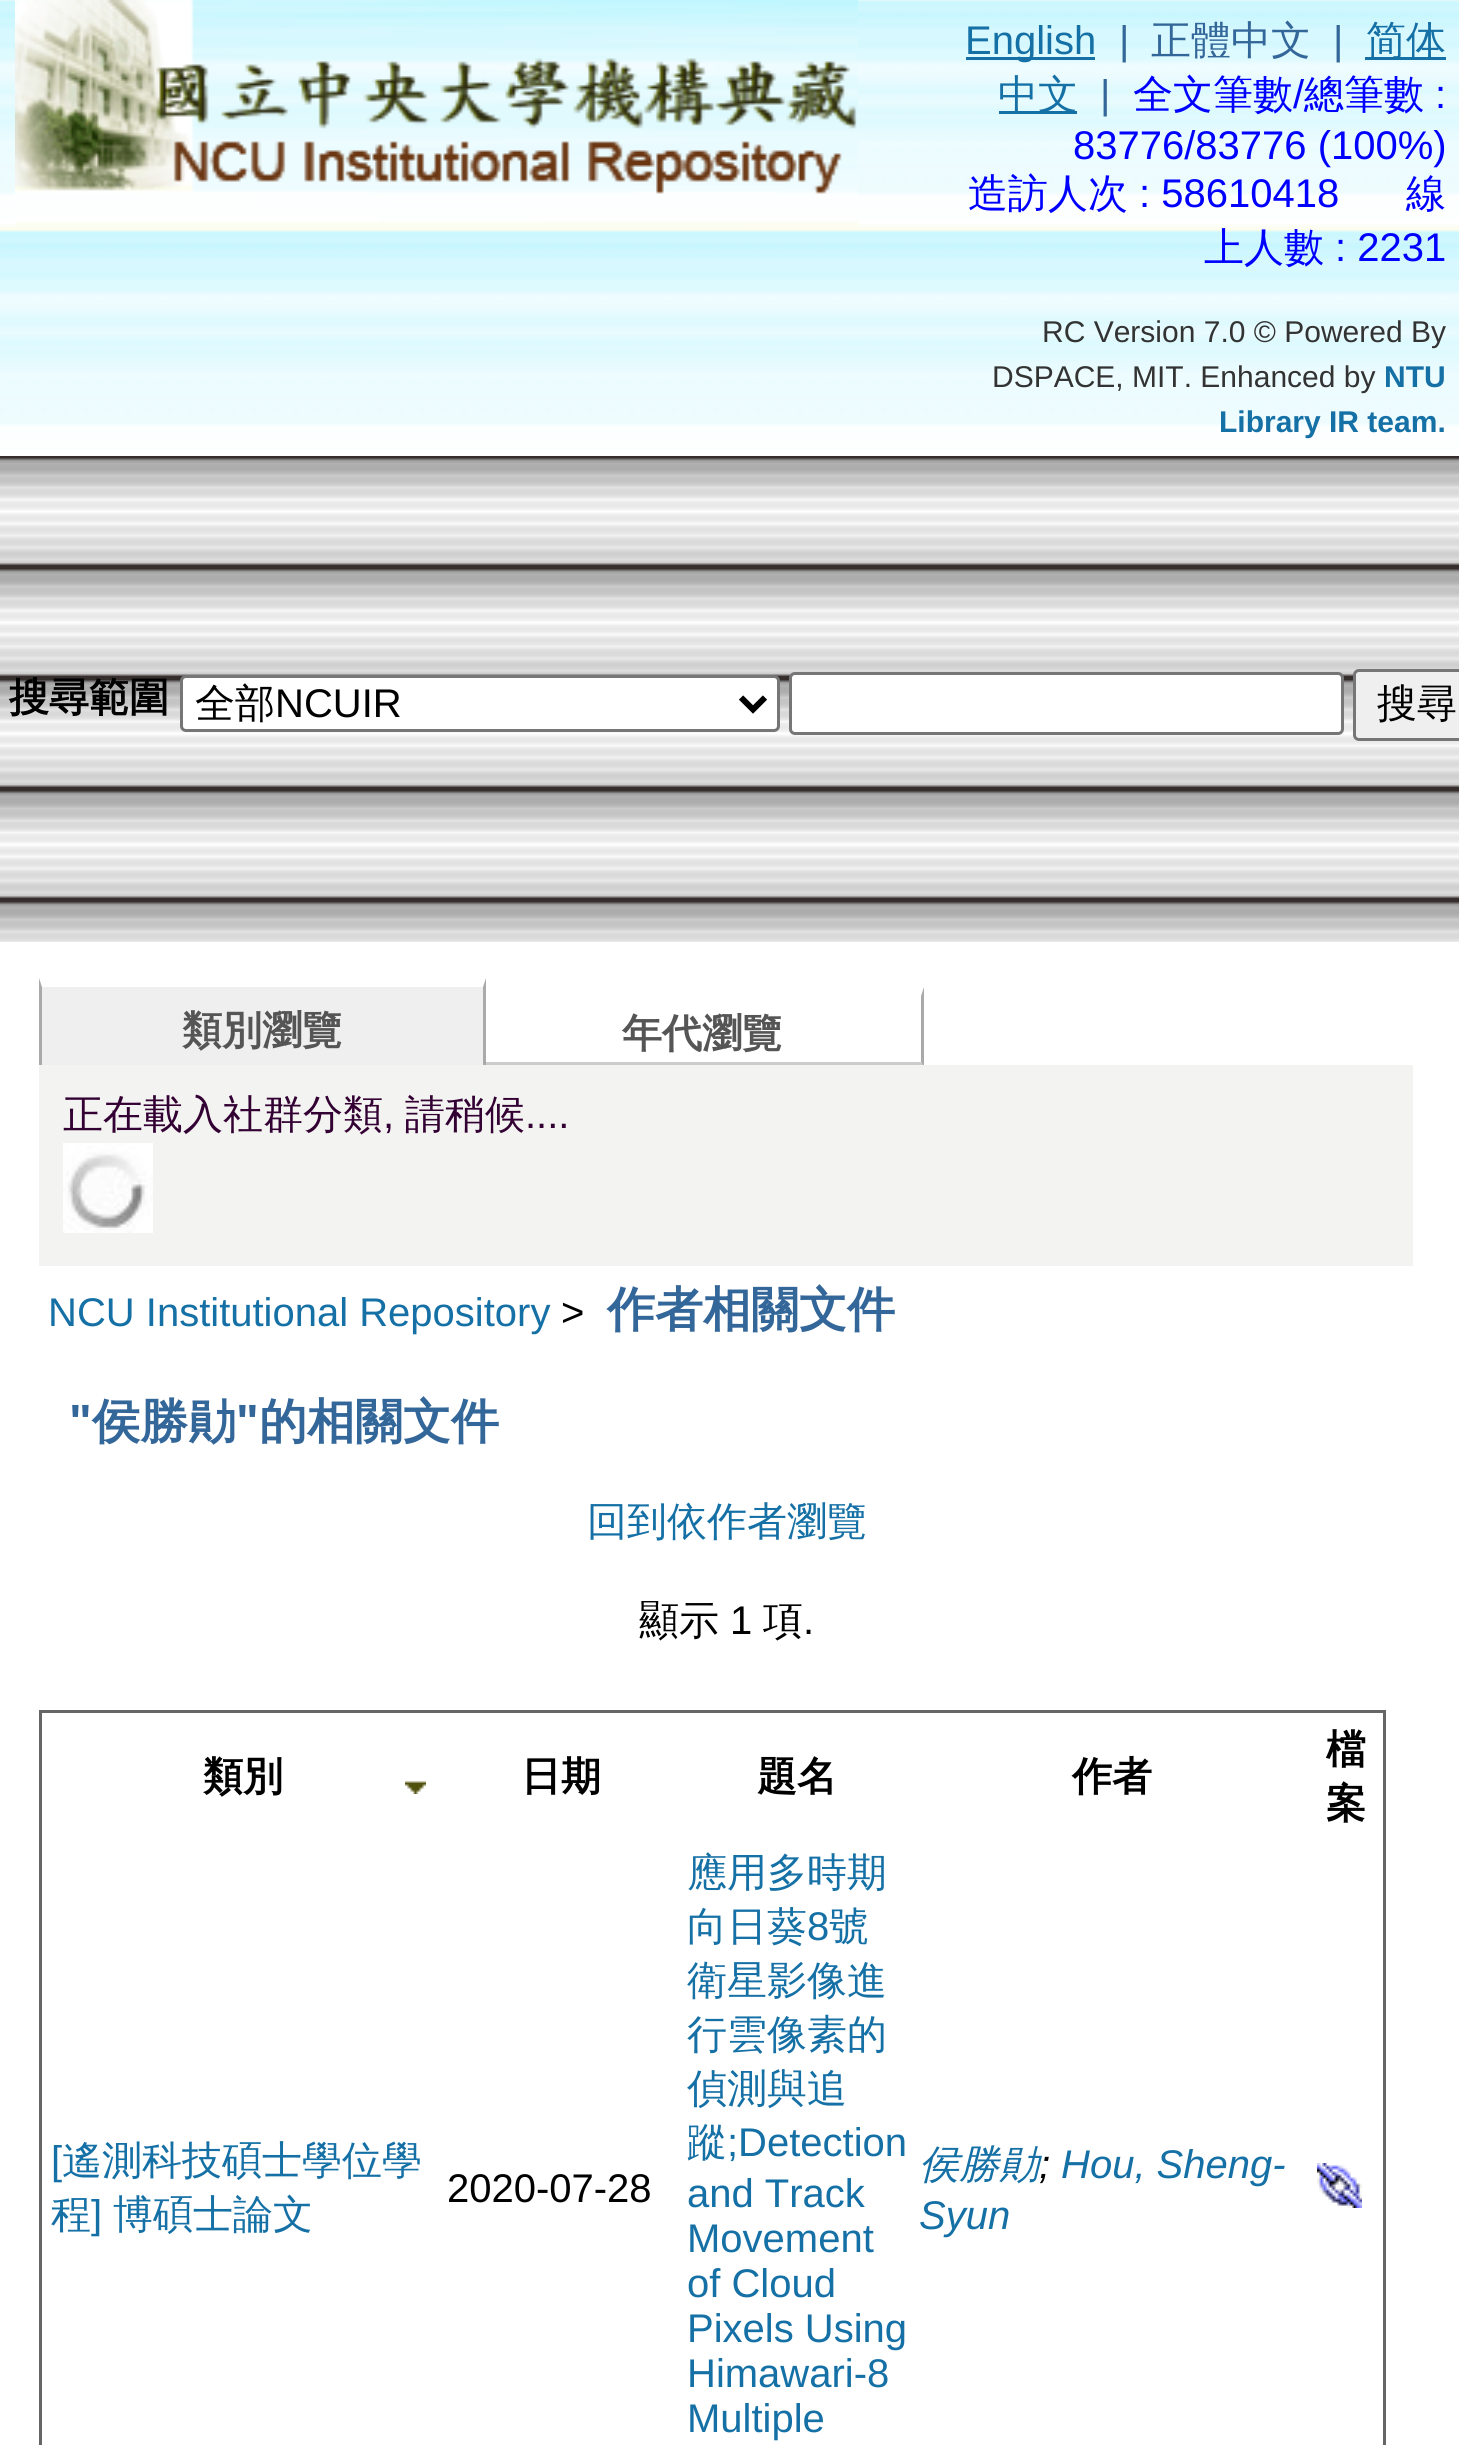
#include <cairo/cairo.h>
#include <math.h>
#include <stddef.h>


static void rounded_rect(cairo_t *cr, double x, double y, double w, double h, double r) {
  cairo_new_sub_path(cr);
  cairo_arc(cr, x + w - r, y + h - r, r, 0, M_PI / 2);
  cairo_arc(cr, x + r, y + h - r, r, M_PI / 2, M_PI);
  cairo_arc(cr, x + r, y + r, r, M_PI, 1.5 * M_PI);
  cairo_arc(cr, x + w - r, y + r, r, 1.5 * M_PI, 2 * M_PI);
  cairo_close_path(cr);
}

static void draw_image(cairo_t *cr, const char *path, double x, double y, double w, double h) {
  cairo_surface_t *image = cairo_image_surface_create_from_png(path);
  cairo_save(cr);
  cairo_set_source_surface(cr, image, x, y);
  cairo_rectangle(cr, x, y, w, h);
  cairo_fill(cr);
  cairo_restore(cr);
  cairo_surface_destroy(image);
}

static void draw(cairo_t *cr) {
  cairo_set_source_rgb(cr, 1, 1, 1);
  cairo_paint(cr);
  draw_image(cr, "images/1.png", 0, 0, 1459, 456);
  draw_image(cr, "images/2.png", 15, 0, 843, 227);
  cairo_set_source_rgb(cr, 21 / 255.0, 112 / 255.0, 166 / 255.0);
  cairo_rectangle(cr, 966, 57, 129, 3);
  cairo_fill(cr);
  cairo_rectangle(cr, 1365, 57, 81, 3);
  cairo_fill(cr);
  cairo_rectangle(cr, 999, 111, 78, 3);
  cairo_fill(cr);
  draw_image(cr, "images/3.png", 0, 456, 1459, 486);
  cairo_set_source_rgb(cr, 1, 1, 1);
  rounded_rect(cr, 181.5, 676.5, 597, 54, 4.5);
  cairo_fill_preserve(cr);
  cairo_set_source_rgb(cr, 118 / 255.0, 118 / 255.0, 118 / 255.0);
  cairo_set_line_width(cr, 3);
  cairo_stroke(cr);
  cairo_new_path(cr);
  cairo_move_to(cr, 741, 697.5);
  cairo_line_to(cr, 753, 709.5);
  cairo_line_to(cr, 765, 697.5);
  cairo_set_source_rgb(cr, 0, 0, 0);
  cairo_set_line_width(cr, 6);
  cairo_stroke(cr);
  cairo_set_source_rgb(cr, 1, 1, 1);
  rounded_rect(cr, 790.5, 673.5, 552, 60, 4.5);
  cairo_fill_preserve(cr);
  cairo_set_source_rgb(cr, 118 / 255.0, 118 / 255.0, 118 / 255.0);
  cairo_set_line_width(cr, 3);
  cairo_stroke(cr);
  cairo_set_source_rgb(cr, 239 / 255.0, 239 / 255.0, 239 / 255.0);
  rounded_rect(cr, 1354.5, 670.5, 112, 69, 4.5);
  cairo_fill_preserve(cr);
  cairo_set_source_rgb(cr, 118 / 255.0, 118 / 255.0, 118 / 255.0);
  cairo_stroke(cr);
  cairo_set_source_rgb(cr, 239 / 255.0, 239 / 255.0, 239 / 255.0);
  cairo_rectangle(cr, 42, 987, 441, 78);
  cairo_fill(cr);
  cairo_set_source_rgb(cr, 170 / 255.0, 170 / 255.0, 170 / 255.0);
  cairo_new_path(cr);
  cairo_move_to(cr, 924, 987);
  cairo_line_to(cr, 924, 1068);
  cairo_line_to(cr, 921, 1062);
  cairo_line_to(cr, 921, 996);
  cairo_close_path(cr);
  cairo_fill(cr);
  cairo_set_source_rgb(cr, 204 / 255.0, 204 / 255.0, 204 / 255.0);
  cairo_new_path(cr);
  cairo_move_to(cr, 924, 1068);
  cairo_line_to(cr, 483, 1068);
  cairo_line_to(cr, 483, 1062);
  cairo_line_to(cr, 921, 1062);
  cairo_close_path(cr);
  cairo_fill(cr);
  cairo_set_source_rgb(cr, 170 / 255.0, 170 / 255.0, 170 / 255.0);
  cairo_new_path(cr);
  cairo_move_to(cr, 486, 978);
  cairo_line_to(cr, 486, 1065);
  cairo_line_to(cr, 483, 1065);
  cairo_line_to(cr, 483, 987);
  cairo_close_path(cr);
  cairo_fill(cr);
  cairo_new_path(cr);
  cairo_move_to(cr, 39, 1065);
  cairo_line_to(cr, 39, 978);
  cairo_line_to(cr, 42, 987);
  cairo_line_to(cr, 42, 1065);
  cairo_close_path(cr);
  cairo_fill(cr);
  cairo_set_source_rgb(cr, 243 / 255.0, 243 / 255.0, 241 / 255.0);
  cairo_rectangle(cr, 39, 1065, 1374, 201);
  cairo_fill(cr);
  draw_image(cr, "images/4.png", 63, 1143, 90, 90);
  cairo_rectangle(cr, 40.5, 1711.5, 1344, 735);
  cairo_set_source_rgb(cr, 102 / 255.0, 102 / 255.0, 102 / 255.0);
  cairo_stroke(cr);
  draw_image(cr, "images/5.png", 405, 1781, 21, 13);
  draw_image(cr, "images/6.png", 1317, 2163, 45, 45);
  cairo_select_font_face(cr, "Liberation Sans", CAIRO_FONT_SLANT_NORMAL, CAIRO_FONT_WEIGHT_NORMAL);
  cairo_set_font_size(cr, 40);
  cairo_set_source_rgb(cr, 21 / 255.0, 112 / 255.0, 166 / 255.0);
  cairo_move_to(cr, 965, 54);
  cairo_show_text(cr, "English");
  cairo_set_source_rgb(cr, 51 / 255.0, 102 / 255.0, 153 / 255.0);
  cairo_move_to(cr, 1119, 54);
  cairo_show_text(cr, "|");
  cairo_select_font_face(cr, "WenQuanYi Zen Hei Medium", CAIRO_FONT_SLANT_NORMAL, CAIRO_FONT_WEIGHT_NORMAL);
  cairo_move_to(cr, 1151, 54);
  cairo_show_text(cr, "正體中文");
  cairo_select_font_face(cr, "Liberation Sans", CAIRO_FONT_SLANT_NORMAL, CAIRO_FONT_WEIGHT_NORMAL);
  cairo_move_to(cr, 1333, 54);
  cairo_show_text(cr, "|");
  cairo_select_font_face(cr, "WenQuanYi Zen Hei Medium", CAIRO_FONT_SLANT_NORMAL, CAIRO_FONT_WEIGHT_NORMAL);
  cairo_set_source_rgb(cr, 21 / 255.0, 112 / 255.0, 166 / 255.0);
  cairo_move_to(cr, 1366, 54);
  cairo_show_text(cr, "简体");
  cairo_move_to(cr, 998, 108);
  cairo_show_text(cr, "中文");
  cairo_select_font_face(cr, "Liberation Sans", CAIRO_FONT_SLANT_NORMAL, CAIRO_FONT_WEIGHT_NORMAL);
  cairo_set_source_rgb(cr, 51 / 255.0, 102 / 255.0, 153 / 255.0);
  cairo_move_to(cr, 1100, 108);
  cairo_show_text(cr, "|");
  cairo_select_font_face(cr, "WenQuanYi Zen Hei Medium", CAIRO_FONT_SLANT_NORMAL, CAIRO_FONT_WEIGHT_NORMAL);
  cairo_set_source_rgb(cr, 0, 0, 1);
  cairo_move_to(cr, 1133, 108);
  cairo_show_text(cr, "全文筆數");
  cairo_select_font_face(cr, "Liberation Sans", CAIRO_FONT_SLANT_NORMAL, CAIRO_FONT_WEIGHT_NORMAL);
  cairo_move_to(cr, 1293, 108);
  cairo_show_text(cr, "/");
  cairo_select_font_face(cr, "WenQuanYi Zen Hei Medium", CAIRO_FONT_SLANT_NORMAL, CAIRO_FONT_WEIGHT_NORMAL);
  cairo_move_to(cr, 1304, 108);
  cairo_show_text(cr, "總筆數");
  cairo_select_font_face(cr, "Liberation Sans", CAIRO_FONT_SLANT_NORMAL, CAIRO_FONT_WEIGHT_NORMAL);
  cairo_move_to(cr, 1435, 108);
  cairo_show_text(cr, ":");
  cairo_move_to(cr, 1073, 159);
  cairo_show_text(cr, "83776/83776 (100%)");
  cairo_select_font_face(cr, "WenQuanYi Zen Hei Medium", CAIRO_FONT_SLANT_NORMAL, CAIRO_FONT_WEIGHT_NORMAL);
  cairo_move_to(cr, 968, 207);
  cairo_show_text(cr, "造訪人次");
  cairo_select_font_face(cr, "Liberation Sans", CAIRO_FONT_SLANT_NORMAL, CAIRO_FONT_WEIGHT_NORMAL);
  cairo_move_to(cr, 1139, 207);
  cairo_show_text(cr, ": 58610418");
  cairo_select_font_face(cr, "WenQuanYi Zen Hei Medium", CAIRO_FONT_SLANT_NORMAL, CAIRO_FONT_WEIGHT_NORMAL);
  cairo_move_to(cr, 1406, 207);
  cairo_show_text(cr, "線");
  cairo_move_to(cr, 1204, 261);
  cairo_show_text(cr, "上人數");
  cairo_select_font_face(cr, "Liberation Sans", CAIRO_FONT_SLANT_NORMAL, CAIRO_FONT_WEIGHT_NORMAL);
  cairo_move_to(cr, 1335, 261);
  cairo_show_text(cr, ": 2231");
  cairo_set_font_size(cr, 30);
  cairo_set_source_rgb(cr, 51 / 255.0, 51 / 255.0, 51 / 255.0);
  cairo_move_to(cr, 1042, 342);
  cairo_show_text(cr, "RC Version 7.0 © Powered By");
  cairo_move_to(cr, 992, 387);
  cairo_show_text(cr, "DSPACE, MIT. Enhanced by");
  cairo_select_font_face(cr, "Liberation Sans", CAIRO_FONT_SLANT_NORMAL, CAIRO_FONT_WEIGHT_BOLD);
  cairo_set_source_rgb(cr, 21 / 255.0, 112 / 255.0, 166 / 255.0);
  cairo_move_to(cr, 1384, 387);
  cairo_show_text(cr, "NTU");
  cairo_move_to(cr, 1219, 432);
  cairo_show_text(cr, "Library IR team.");
  cairo_select_font_face(cr, "WenQuanYi Zen Hei", CAIRO_FONT_SLANT_NORMAL, CAIRO_FONT_WEIGHT_BOLD);
  cairo_set_font_size(cr, 40);
  cairo_set_source_rgb(cr, 0, 0, 0);
  cairo_move_to(cr, 9, 711);
  cairo_show_text(cr, "搜尋範圍");
  cairo_select_font_face(cr, "WenQuanYi Zen Hei Medium", CAIRO_FONT_SLANT_NORMAL, CAIRO_FONT_WEIGHT_NORMAL);
  cairo_move_to(cr, 195, 717);
  cairo_show_text(cr, "全部");
  cairo_select_font_face(cr, "Liberation Sans", CAIRO_FONT_SLANT_NORMAL, CAIRO_FONT_WEIGHT_NORMAL);
  cairo_move_to(cr, 275, 717);
  cairo_show_text(cr, "NCUIR");
  cairo_select_font_face(cr, "WenQuanYi Zen Hei Medium", CAIRO_FONT_SLANT_NORMAL, CAIRO_FONT_WEIGHT_NORMAL);
  cairo_move_to(cr, 1377, 717);
  cairo_show_text(cr, "搜尋");
  cairo_select_font_face(cr, "WenQuanYi Zen Hei", CAIRO_FONT_SLANT_NORMAL, CAIRO_FONT_WEIGHT_BOLD);
  cairo_set_source_rgb(cr, 85 / 255.0, 85 / 255.0, 85 / 255.0);
  cairo_move_to(cr, 182, 1044);
  cairo_show_text(cr, "類別瀏覽");
  cairo_move_to(cr, 622, 1047);
  cairo_show_text(cr, "年代瀏覽");
  cairo_select_font_face(cr, "WenQuanYi Zen Hei Medium", CAIRO_FONT_SLANT_NORMAL, CAIRO_FONT_WEIGHT_NORMAL);
  cairo_set_source_rgb(cr, 51 / 255.0, 0, 51 / 255.0);
  cairo_move_to(cr, 63, 1128);
  cairo_show_text(cr, "正在載入社群分類");
  cairo_select_font_face(cr, "Liberation Sans", CAIRO_FONT_SLANT_NORMAL, CAIRO_FONT_WEIGHT_NORMAL);
  cairo_move_to(cr, 383, 1128);
  cairo_show_text(cr, ",");
  cairo_select_font_face(cr, "WenQuanYi Zen Hei Medium", CAIRO_FONT_SLANT_NORMAL, CAIRO_FONT_WEIGHT_NORMAL);
  cairo_move_to(cr, 405, 1128);
  cairo_show_text(cr, "請稍候");
  cairo_select_font_face(cr, "Liberation Sans", CAIRO_FONT_SLANT_NORMAL, CAIRO_FONT_WEIGHT_NORMAL);
  cairo_move_to(cr, 525, 1128);
  cairo_show_text(cr, "....");
  cairo_set_source_rgb(cr, 21 / 255.0, 112 / 255.0, 166 / 255.0);
  cairo_move_to(cr, 48, 1326);
  cairo_show_text(cr, "NCU Institutional Repository");
  cairo_set_source_rgb(cr, 0, 0, 0);
  cairo_move_to(cr, 561, 1326);
  cairo_show_text(cr, ">");
  cairo_select_font_face(cr, "WenQuanYi Zen Hei", CAIRO_FONT_SLANT_NORMAL, CAIRO_FONT_WEIGHT_BOLD);
  cairo_set_font_size(cr, 48);
  cairo_set_source_rgb(cr, 51 / 255.0, 102 / 255.0, 153 / 255.0);
  cairo_move_to(cr, 607, 1326);
  cairo_show_text(cr, "作者相關文件");
  cairo_select_font_face(cr, "Liberation Sans", CAIRO_FONT_SLANT_NORMAL, CAIRO_FONT_WEIGHT_BOLD);
  cairo_move_to(cr, 69, 1438);
  cairo_show_text(cr, "\"");
  cairo_select_font_face(cr, "WenQuanYi Zen Hei", CAIRO_FONT_SLANT_NORMAL, CAIRO_FONT_WEIGHT_BOLD);
  cairo_move_to(cr, 92, 1438);
  cairo_show_text(cr, "侯勝勛");
  cairo_select_font_face(cr, "Liberation Sans", CAIRO_FONT_SLANT_NORMAL, CAIRO_FONT_WEIGHT_BOLD);
  cairo_move_to(cr, 236, 1438);
  cairo_show_text(cr, "\"");
  cairo_select_font_face(cr, "WenQuanYi Zen Hei", CAIRO_FONT_SLANT_NORMAL, CAIRO_FONT_WEIGHT_BOLD);
  cairo_move_to(cr, 259, 1438);
  cairo_show_text(cr, "的相關文件");
  cairo_select_font_face(cr, "WenQuanYi Zen Hei Medium", CAIRO_FONT_SLANT_NORMAL, CAIRO_FONT_WEIGHT_NORMAL);
  cairo_set_font_size(cr, 40);
  cairo_set_source_rgb(cr, 21 / 255.0, 112 / 255.0, 166 / 255.0);
  cairo_move_to(cr, 587, 1535);
  cairo_show_text(cr, "回到依作者瀏覽");
  cairo_set_source_rgb(cr, 0, 0, 0);
  cairo_move_to(cr, 639, 1634);
  cairo_show_text(cr, "顯示");
  cairo_select_font_face(cr, "Liberation Sans", CAIRO_FONT_SLANT_NORMAL, CAIRO_FONT_WEIGHT_NORMAL);
  cairo_move_to(cr, 730, 1634);
  cairo_show_text(cr, "1");
  cairo_select_font_face(cr, "WenQuanYi Zen Hei Medium", CAIRO_FONT_SLANT_NORMAL, CAIRO_FONT_WEIGHT_NORMAL);
  cairo_move_to(cr, 763, 1634);
  cairo_show_text(cr, "項");
  cairo_select_font_face(cr, "Liberation Sans", CAIRO_FONT_SLANT_NORMAL, CAIRO_FONT_WEIGHT_NORMAL);
  cairo_move_to(cr, 803, 1634);
  cairo_show_text(cr, ".");
  cairo_select_font_face(cr, "WenQuanYi Zen Hei", CAIRO_FONT_SLANT_NORMAL, CAIRO_FONT_WEIGHT_BOLD);
  cairo_move_to(cr, 203, 1790);
  cairo_show_text(cr, "類別");
  cairo_move_to(cr, 521, 1790);
  cairo_show_text(cr, "日期");
  cairo_move_to(cr, 757, 1790);
  cairo_show_text(cr, "題名");
  cairo_move_to(cr, 1072, 1790);
  cairo_show_text(cr, "作者");
  cairo_move_to(cr, 1326, 1763);
  cairo_show_text(cr, "檔");
  cairo_move_to(cr, 1326, 1817);
  cairo_show_text(cr, "案");
  cairo_select_font_face(cr, "Liberation Sans", CAIRO_FONT_SLANT_NORMAL, CAIRO_FONT_WEIGHT_NORMAL);
  cairo_set_source_rgb(cr, 21 / 255.0, 112 / 255.0, 166 / 255.0);
  cairo_move_to(cr, 51, 2174);
  cairo_show_text(cr, "[");
  cairo_select_font_face(cr, "WenQuanYi Zen Hei Medium", CAIRO_FONT_SLANT_NORMAL, CAIRO_FONT_WEIGHT_NORMAL);
  cairo_move_to(cr, 62, 2174);
  cairo_show_text(cr, "遙測科技碩士學位學");
  cairo_move_to(cr, 51, 2228);
  cairo_show_text(cr, "程");
  cairo_select_font_face(cr, "Liberation Sans", CAIRO_FONT_SLANT_NORMAL, CAIRO_FONT_WEIGHT_NORMAL);
  cairo_move_to(cr, 91, 2228);
  cairo_show_text(cr, "]");
  cairo_select_font_face(cr, "WenQuanYi Zen Hei Medium", CAIRO_FONT_SLANT_NORMAL, CAIRO_FONT_WEIGHT_NORMAL);
  cairo_move_to(cr, 113, 2228);
  cairo_show_text(cr, "博碩士論文");
  cairo_select_font_face(cr, "Liberation Sans", CAIRO_FONT_SLANT_NORMAL, CAIRO_FONT_WEIGHT_NORMAL);
  cairo_set_source_rgb(cr, 0, 0, 0);
  cairo_move_to(cr, 447, 2202);
  cairo_show_text(cr, "2020-07-28");
  cairo_select_font_face(cr, "WenQuanYi Zen Hei Medium", CAIRO_FONT_SLANT_NORMAL, CAIRO_FONT_WEIGHT_NORMAL);
  cairo_set_source_rgb(cr, 21 / 255.0, 112 / 255.0, 166 / 255.0);
  cairo_move_to(cr, 687, 1886);
  cairo_show_text(cr, "應用多時期");
  cairo_move_to(cr, 687, 1940);
  cairo_show_text(cr, "向日葵");
  cairo_select_font_face(cr, "Liberation Sans", CAIRO_FONT_SLANT_NORMAL, CAIRO_FONT_WEIGHT_NORMAL);
  cairo_move_to(cr, 807, 1940);
  cairo_show_text(cr, "8");
  cairo_select_font_face(cr, "WenQuanYi Zen Hei Medium", CAIRO_FONT_SLANT_NORMAL, CAIRO_FONT_WEIGHT_NORMAL);
  cairo_move_to(cr, 829, 1940);
  cairo_show_text(cr, "號");
  cairo_move_to(cr, 687, 1994);
  cairo_show_text(cr, "衛星影像進");
  cairo_move_to(cr, 687, 2048);
  cairo_show_text(cr, "行雲像素的");
  cairo_move_to(cr, 687, 2102);
  cairo_show_text(cr, "偵測與追");
  cairo_move_to(cr, 687, 2156);
  cairo_show_text(cr, "蹤");
  cairo_select_font_face(cr, "Liberation Sans", CAIRO_FONT_SLANT_NORMAL, CAIRO_FONT_WEIGHT_NORMAL);
  cairo_move_to(cr, 727, 2156);
  cairo_show_text(cr, ";Detection");
  cairo_move_to(cr, 687, 2207);
  cairo_show_text(cr, "and Track");
  cairo_move_to(cr, 687, 2252);
  cairo_show_text(cr, "Movement");
  cairo_move_to(cr, 687, 2297);
  cairo_show_text(cr, "of Cloud");
  cairo_move_to(cr, 687, 2342);
  cairo_show_text(cr, "Pixels Using");
  cairo_move_to(cr, 687, 2387);
  cairo_show_text(cr, "Himawari-8");
  cairo_move_to(cr, 687, 2432);
  cairo_show_text(cr, "Multiple");
  cairo_select_font_face(cr, "WenQuanYi Zen Hei Medium", CAIRO_FONT_SLANT_ITALIC, CAIRO_FONT_WEIGHT_NORMAL);
  cairo_move_to(cr, 919, 2178);
  cairo_show_text(cr, "侯勝勛");
  cairo_select_font_face(cr, "Liberation Sans", CAIRO_FONT_SLANT_ITALIC, CAIRO_FONT_WEIGHT_NORMAL);
  cairo_set_source_rgb(cr, 0, 0, 0);
  cairo_move_to(cr, 1039, 2178);
  cairo_show_text(cr, ";");
  cairo_set_source_rgb(cr, 21 / 255.0, 112 / 255.0, 166 / 255.0);
  cairo_move_to(cr, 1061, 2178);
  cairo_show_text(cr, "Hou, Sheng-");
  cairo_move_to(cr, 919, 2229);
  cairo_show_text(cr, "Syun");
}

int main(void) {
  cairo_surface_t *surface = cairo_image_surface_create(CAIRO_FORMAT_RGB24, 1459, 2445);
  cairo_t *cr = cairo_create(surface);
  cairo_font_options_t *options = cairo_font_options_create();
  cairo_font_options_set_hint_metrics(options, CAIRO_HINT_METRICS_OFF);
  cairo_font_options_set_hint_style(options, CAIRO_HINT_STYLE_NONE);
  cairo_set_font_options(cr, options);
  cairo_set_miter_limit(cr, 4);
  draw(cr);
  cairo_surface_write_to_png(surface, "out.png");
  cairo_font_options_destroy(options);
  cairo_destroy(cr);
  cairo_surface_destroy(surface);
  return 0;
}
